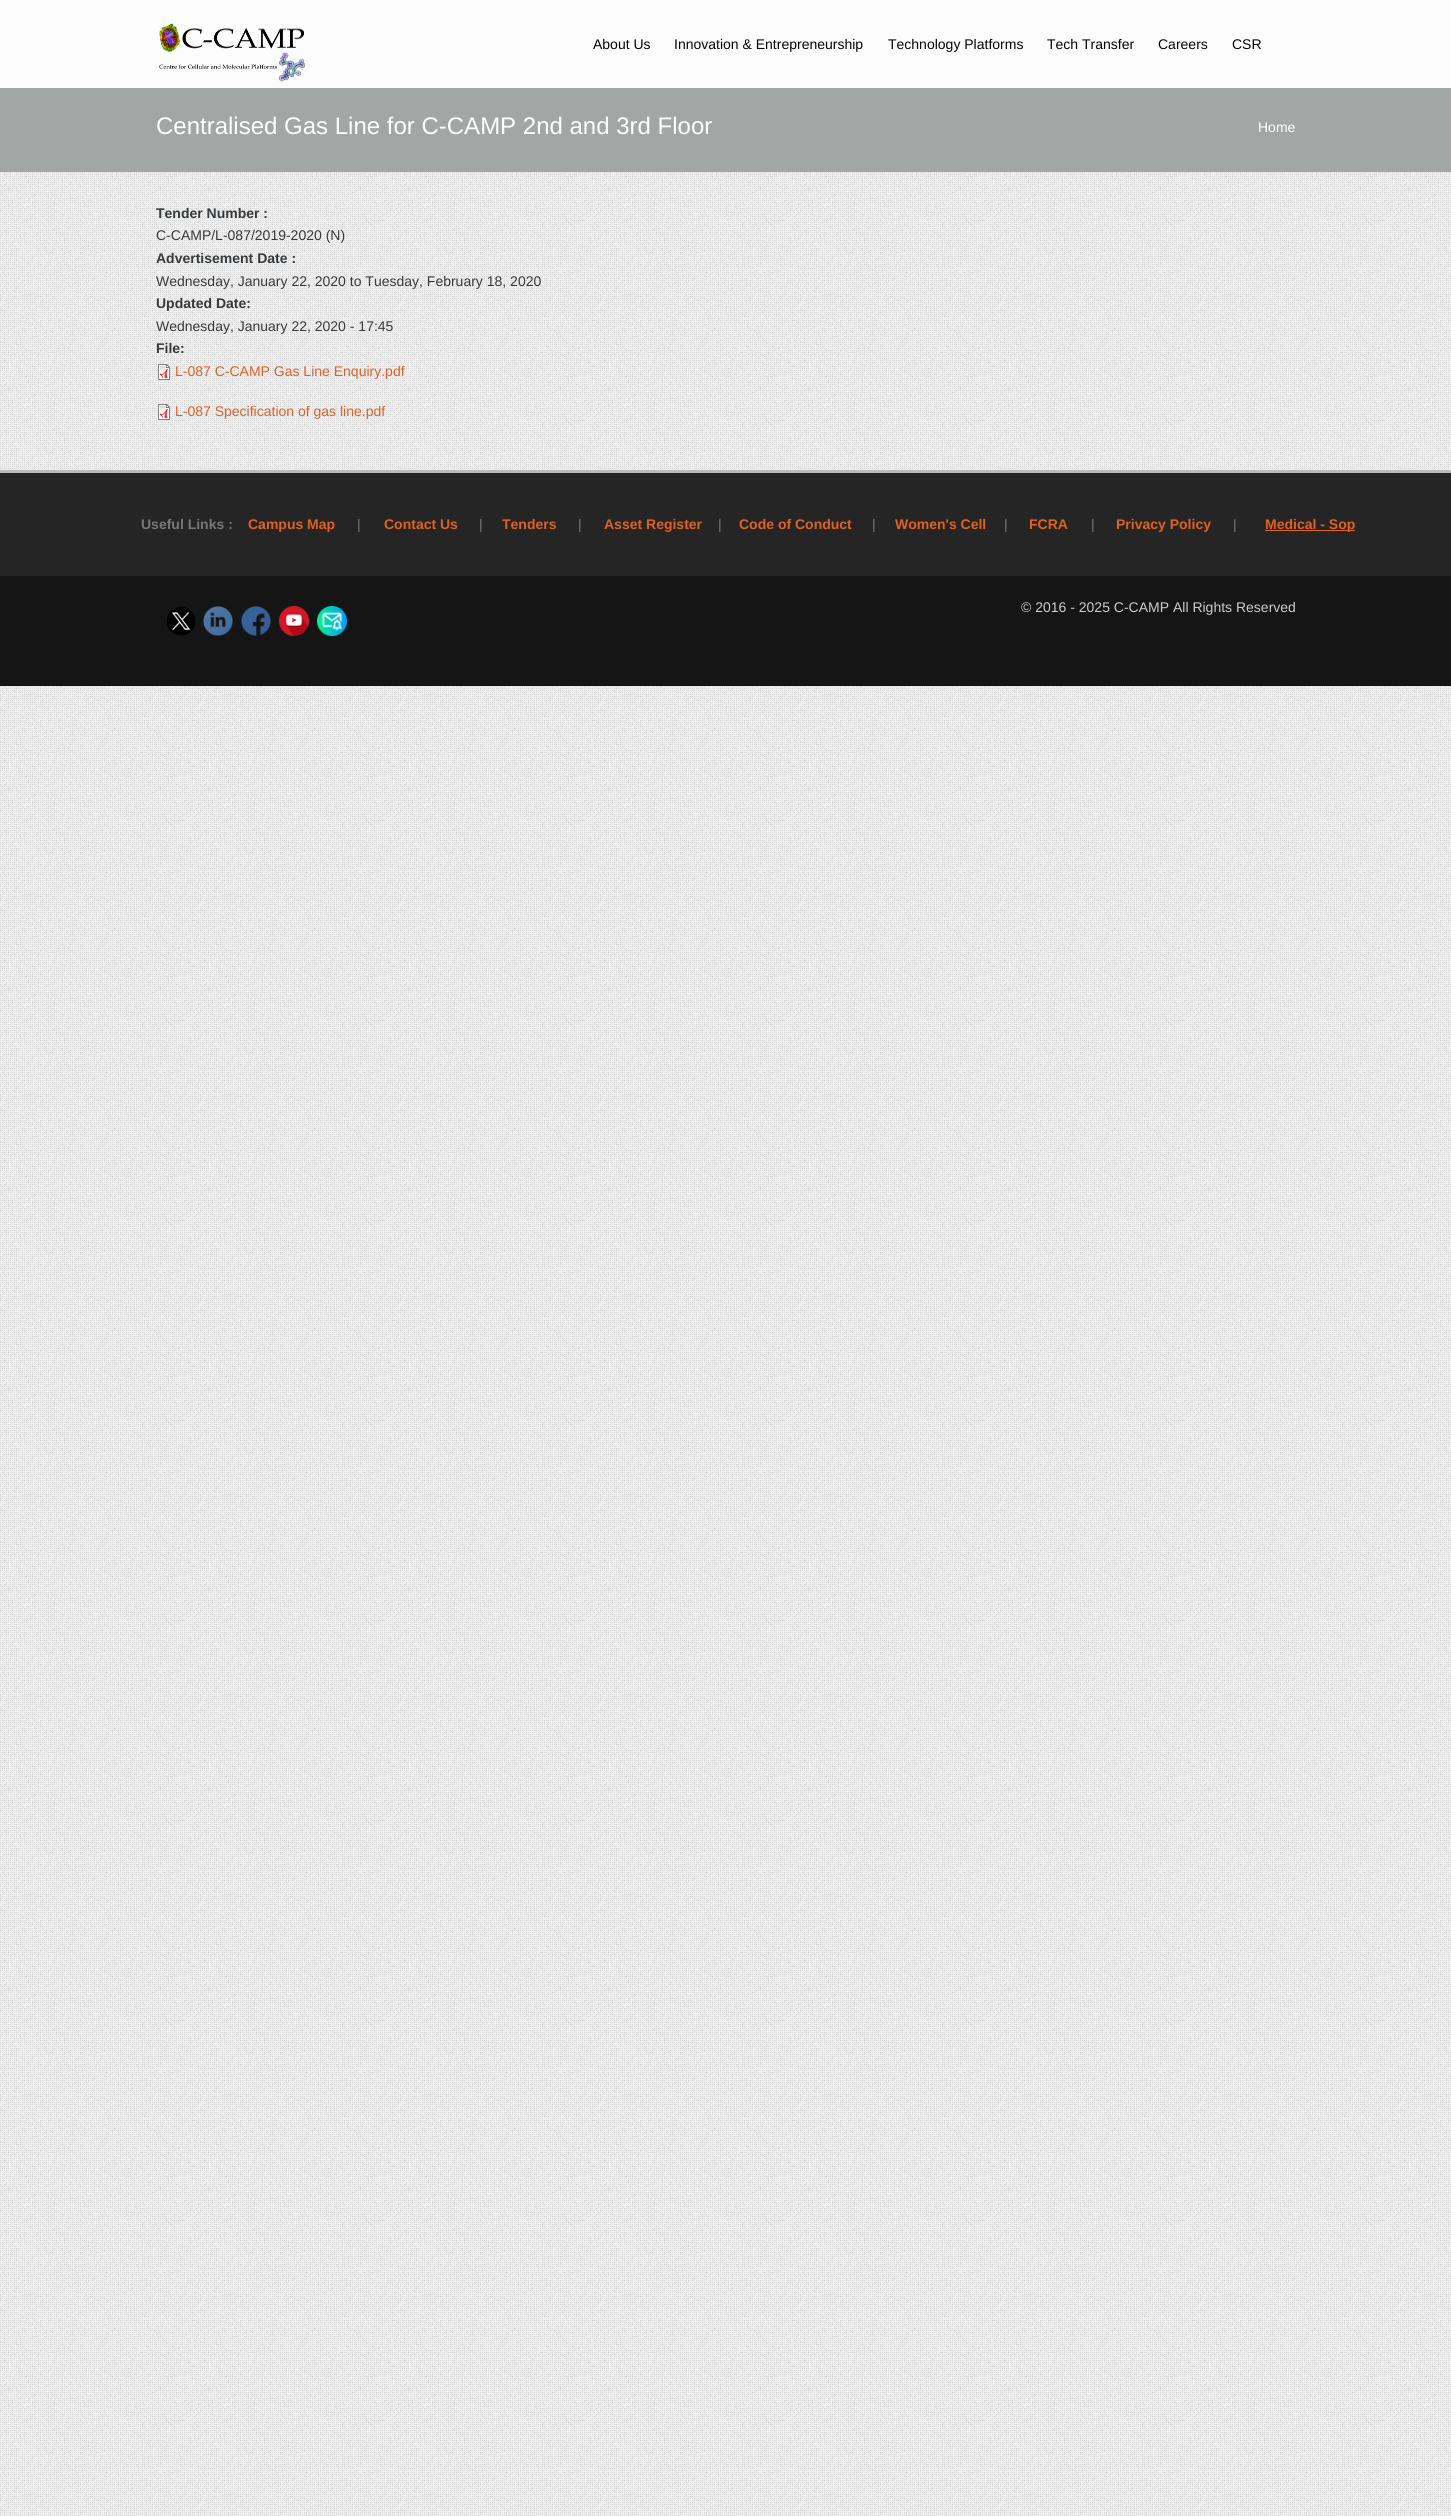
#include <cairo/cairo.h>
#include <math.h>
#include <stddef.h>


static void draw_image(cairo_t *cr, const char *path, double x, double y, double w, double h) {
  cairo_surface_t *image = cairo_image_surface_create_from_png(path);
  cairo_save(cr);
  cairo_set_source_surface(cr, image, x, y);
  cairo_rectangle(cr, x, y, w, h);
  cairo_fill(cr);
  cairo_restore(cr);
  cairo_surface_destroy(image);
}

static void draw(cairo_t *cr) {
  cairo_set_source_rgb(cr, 1, 1, 1);
  cairo_paint(cr);
  draw_image(cr, "images/1.png", 0, 172, 1451, 2344);
  cairo_set_source_rgb(cr, 252 / 255.0, 252 / 255.0, 252 / 255.0);
  cairo_rectangle(cr, 0, 0, 1451, 88);
  cairo_fill(cr);
  draw_image(cr, "images/2.png", 159, 23, 147, 59);
  cairo_set_source_rgb(cr, 162 / 255.0, 166 / 255.0, 164 / 255.0);
  cairo_rectangle(cr, 0, 88, 1451, 84);
  cairo_fill(cr);
  cairo_set_source_rgb(cr, 187 / 255.0, 187 / 255.0, 187 / 255.0);
  cairo_rectangle(cr, 0, 470, 1451, 3);
  cairo_fill(cr);
  draw_image(cr, "images/3.png", 158, 364, 12, 16);
  draw_image(cr, "images/4.png", 158, 404, 12, 16);
  cairo_set_source_rgb(cr, 37 / 255.0, 37 / 255.0, 37 / 255.0);
  cairo_rectangle(cr, 0, 473, 1451, 103);
  cairo_fill(cr);
  cairo_set_source_rgb(cr, 225 / 255.0, 97 / 255.0, 33 / 255.0);
  cairo_rectangle(cr, 1265, 530, 90, 1);
  cairo_fill(cr);
  cairo_set_source_rgb(cr, 21 / 255.0, 21 / 255.0, 21 / 255.0);
  cairo_rectangle(cr, 0, 576, 1451, 110);
  cairo_fill(cr);
  draw_image(cr, "images/5.png", 167, 607, 29, 29);
  draw_image(cr, "images/6.png", 203, 606, 30, 30);
  draw_image(cr, "images/7.png", 241, 606, 30, 30);
  draw_image(cr, "images/8.png", 279, 606, 30, 30);
  draw_image(cr, "images/9.png", 317, 606, 30, 30);
  cairo_select_font_face(cr, "Liberation Sans", CAIRO_FONT_SLANT_NORMAL, CAIRO_FONT_WEIGHT_NORMAL);
  cairo_set_font_size(cr, 14);
  cairo_set_source_rgb(cr, 5 / 255.0, 5 / 255.0, 5 / 255.0);
  cairo_move_to(cr, 593, 49);
  cairo_show_text(cr, "About Us");
  cairo_move_to(cr, 674, 49);
  cairo_show_text(cr, "Innovation & Entrepreneurship");
  cairo_move_to(cr, 888, 49);
  cairo_show_text(cr, "Technology Platforms");
  cairo_move_to(cr, 1047, 49);
  cairo_show_text(cr, "Tech Transfer");
  cairo_move_to(cr, 1158, 49);
  cairo_show_text(cr, "Careers");
  cairo_move_to(cr, 1232, 49);
  cairo_show_text(cr, "CSR");
  cairo_set_font_size(cr, 24);
  cairo_set_source_rgb(cr, 1, 1, 1);
  cairo_move_to(cr, 156, 134);
  cairo_show_text(cr, "Centralised Gas Line for C-CAMP 2nd and 3rd Floor");
  cairo_set_font_size(cr, 14);
  cairo_move_to(cr, 1258, 132);
  cairo_show_text(cr, "Home");
  cairo_select_font_face(cr, "Liberation Sans", CAIRO_FONT_SLANT_NORMAL, CAIRO_FONT_WEIGHT_BOLD);
  cairo_set_source_rgb(cr, 55 / 255.0, 58 / 255.0, 60 / 255.0);
  cairo_move_to(cr, 156, 218);
  cairo_show_text(cr, "Tender Number :");
  cairo_select_font_face(cr, "Liberation Sans", CAIRO_FONT_SLANT_NORMAL, CAIRO_FONT_WEIGHT_NORMAL);
  cairo_move_to(cr, 156, 240);
  cairo_show_text(cr, "C-CAMP/L-087/2019-2020 (N)");
  cairo_select_font_face(cr, "Liberation Sans", CAIRO_FONT_SLANT_NORMAL, CAIRO_FONT_WEIGHT_BOLD);
  cairo_move_to(cr, 156, 263);
  cairo_show_text(cr, "Advertisement Date :");
  cairo_select_font_face(cr, "Liberation Sans", CAIRO_FONT_SLANT_NORMAL, CAIRO_FONT_WEIGHT_NORMAL);
  cairo_move_to(cr, 156, 286);
  cairo_show_text(cr, "Wednesday, January 22, 2020 to Tuesday, February 18, 2020");
  cairo_select_font_face(cr, "Liberation Sans", CAIRO_FONT_SLANT_NORMAL, CAIRO_FONT_WEIGHT_BOLD);
  cairo_move_to(cr, 156, 308);
  cairo_show_text(cr, "Updated Date:");
  cairo_select_font_face(cr, "Liberation Sans", CAIRO_FONT_SLANT_NORMAL, CAIRO_FONT_WEIGHT_NORMAL);
  cairo_move_to(cr, 156, 331);
  cairo_show_text(cr, "Wednesday, January 22, 2020 - 17:45");
  cairo_select_font_face(cr, "Liberation Sans", CAIRO_FONT_SLANT_NORMAL, CAIRO_FONT_WEIGHT_BOLD);
  cairo_move_to(cr, 156, 353);
  cairo_show_text(cr, "File:");
  cairo_select_font_face(cr, "Liberation Sans", CAIRO_FONT_SLANT_NORMAL, CAIRO_FONT_WEIGHT_NORMAL);
  cairo_set_source_rgb(cr, 225 / 255.0, 97 / 255.0, 33 / 255.0);
  cairo_move_to(cr, 175, 376);
  cairo_show_text(cr, "L-087 C-CAMP Gas Line Enquiry.pdf");
  cairo_move_to(cr, 175, 416);
  cairo_show_text(cr, "L-087 Specification of gas line.pdf");
  cairo_select_font_face(cr, "Liberation Sans", CAIRO_FONT_SLANT_NORMAL, CAIRO_FONT_WEIGHT_BOLD);
  cairo_set_source_rgb(cr, 119 / 255.0, 119 / 255.0, 119 / 255.0);
  cairo_move_to(cr, 141, 529);
  cairo_show_text(cr, "Useful Links :");
  cairo_set_source_rgb(cr, 225 / 255.0, 97 / 255.0, 33 / 255.0);
  cairo_move_to(cr, 248, 529);
  cairo_show_text(cr, "Campus Map");
  cairo_select_font_face(cr, "Liberation Sans", CAIRO_FONT_SLANT_NORMAL, CAIRO_FONT_WEIGHT_NORMAL);
  cairo_set_source_rgb(cr, 119 / 255.0, 119 / 255.0, 119 / 255.0);
  cairo_move_to(cr, 357, 529);
  cairo_show_text(cr, "|");
  cairo_select_font_face(cr, "Liberation Sans", CAIRO_FONT_SLANT_NORMAL, CAIRO_FONT_WEIGHT_BOLD);
  cairo_set_source_rgb(cr, 225 / 255.0, 97 / 255.0, 33 / 255.0);
  cairo_move_to(cr, 384, 529);
  cairo_show_text(cr, "Contact Us");
  cairo_select_font_face(cr, "Liberation Sans", CAIRO_FONT_SLANT_NORMAL, CAIRO_FONT_WEIGHT_NORMAL);
  cairo_set_source_rgb(cr, 119 / 255.0, 119 / 255.0, 119 / 255.0);
  cairo_move_to(cr, 479, 529);
  cairo_show_text(cr, "|");
  cairo_select_font_face(cr, "Liberation Sans", CAIRO_FONT_SLANT_NORMAL, CAIRO_FONT_WEIGHT_BOLD);
  cairo_set_source_rgb(cr, 225 / 255.0, 97 / 255.0, 33 / 255.0);
  cairo_move_to(cr, 502, 529);
  cairo_show_text(cr, "Tenders");
  cairo_select_font_face(cr, "Liberation Sans", CAIRO_FONT_SLANT_NORMAL, CAIRO_FONT_WEIGHT_NORMAL);
  cairo_set_source_rgb(cr, 119 / 255.0, 119 / 255.0, 119 / 255.0);
  cairo_move_to(cr, 578, 529);
  cairo_show_text(cr, "|");
  cairo_select_font_face(cr, "Liberation Sans", CAIRO_FONT_SLANT_NORMAL, CAIRO_FONT_WEIGHT_BOLD);
  cairo_set_source_rgb(cr, 225 / 255.0, 97 / 255.0, 33 / 255.0);
  cairo_move_to(cr, 604, 529);
  cairo_show_text(cr, "Asset Register");
  cairo_select_font_face(cr, "Liberation Sans", CAIRO_FONT_SLANT_NORMAL, CAIRO_FONT_WEIGHT_NORMAL);
  cairo_set_source_rgb(cr, 119 / 255.0, 119 / 255.0, 119 / 255.0);
  cairo_move_to(cr, 718, 529);
  cairo_show_text(cr, "|");
  cairo_select_font_face(cr, "Liberation Sans", CAIRO_FONT_SLANT_NORMAL, CAIRO_FONT_WEIGHT_BOLD);
  cairo_set_source_rgb(cr, 225 / 255.0, 97 / 255.0, 33 / 255.0);
  cairo_move_to(cr, 739, 529);
  cairo_show_text(cr, "Code of Conduct");
  cairo_select_font_face(cr, "Liberation Sans", CAIRO_FONT_SLANT_NORMAL, CAIRO_FONT_WEIGHT_NORMAL);
  cairo_set_source_rgb(cr, 119 / 255.0, 119 / 255.0, 119 / 255.0);
  cairo_move_to(cr, 872, 529);
  cairo_show_text(cr, "|");
  cairo_select_font_face(cr, "Liberation Sans", CAIRO_FONT_SLANT_NORMAL, CAIRO_FONT_WEIGHT_BOLD);
  cairo_set_source_rgb(cr, 225 / 255.0, 97 / 255.0, 33 / 255.0);
  cairo_move_to(cr, 895, 529);
  cairo_show_text(cr, "Women's Cell");
  cairo_select_font_face(cr, "Liberation Sans", CAIRO_FONT_SLANT_NORMAL, CAIRO_FONT_WEIGHT_NORMAL);
  cairo_set_source_rgb(cr, 119 / 255.0, 119 / 255.0, 119 / 255.0);
  cairo_move_to(cr, 1004, 529);
  cairo_show_text(cr, "|");
  cairo_select_font_face(cr, "Liberation Sans", CAIRO_FONT_SLANT_NORMAL, CAIRO_FONT_WEIGHT_BOLD);
  cairo_set_source_rgb(cr, 225 / 255.0, 97 / 255.0, 33 / 255.0);
  cairo_move_to(cr, 1029, 529);
  cairo_show_text(cr, "FCRA");
  cairo_select_font_face(cr, "Liberation Sans", CAIRO_FONT_SLANT_NORMAL, CAIRO_FONT_WEIGHT_NORMAL);
  cairo_set_source_rgb(cr, 119 / 255.0, 119 / 255.0, 119 / 255.0);
  cairo_move_to(cr, 1091, 529);
  cairo_show_text(cr, "|");
  cairo_select_font_face(cr, "Liberation Sans", CAIRO_FONT_SLANT_NORMAL, CAIRO_FONT_WEIGHT_BOLD);
  cairo_set_source_rgb(cr, 225 / 255.0, 97 / 255.0, 33 / 255.0);
  cairo_move_to(cr, 1116, 529);
  cairo_show_text(cr, "Privacy Policy");
  cairo_select_font_face(cr, "Liberation Sans", CAIRO_FONT_SLANT_NORMAL, CAIRO_FONT_WEIGHT_NORMAL);
  cairo_set_source_rgb(cr, 119 / 255.0, 119 / 255.0, 119 / 255.0);
  cairo_move_to(cr, 1233, 529);
  cairo_show_text(cr, "|");
  cairo_select_font_face(cr, "Liberation Sans", CAIRO_FONT_SLANT_NORMAL, CAIRO_FONT_WEIGHT_BOLD);
  cairo_set_source_rgb(cr, 225 / 255.0, 97 / 255.0, 33 / 255.0);
  cairo_move_to(cr, 1265, 529);
  cairo_show_text(cr, "Medical - Sop");
  cairo_select_font_face(cr, "Liberation Sans", CAIRO_FONT_SLANT_NORMAL, CAIRO_FONT_WEIGHT_NORMAL);
  cairo_set_source_rgb(cr, 204 / 255.0, 204 / 255.0, 204 / 255.0);
  cairo_move_to(cr, 1021, 612);
  cairo_show_text(cr, "© 2016 - 2025 C-CAMP All Rights Reserved");
}

int main(void) {
  cairo_surface_t *surface = cairo_image_surface_create(CAIRO_FORMAT_RGB24, 1451, 2516);
  cairo_t *cr = cairo_create(surface);
  cairo_font_options_t *options = cairo_font_options_create();
  cairo_font_options_set_hint_metrics(options, CAIRO_HINT_METRICS_OFF);
  cairo_font_options_set_hint_style(options, CAIRO_HINT_STYLE_NONE);
  cairo_set_font_options(cr, options);
  cairo_set_miter_limit(cr, 4);
  draw(cr);
  cairo_surface_write_to_png(surface, "out.png");
  cairo_font_options_destroy(options);
  cairo_destroy(cr);
  cairo_surface_destroy(surface);
  return 0;
}
